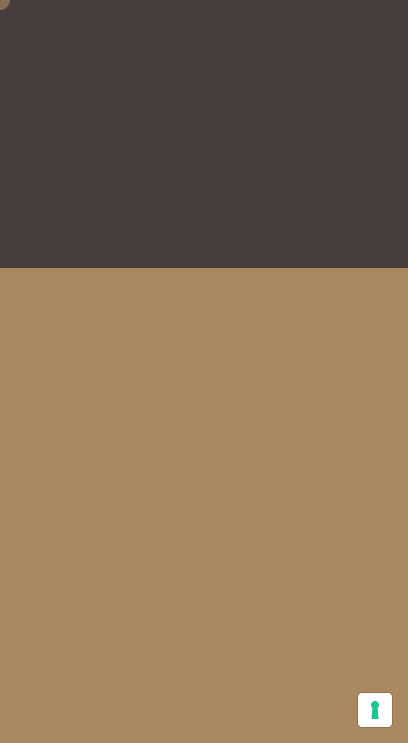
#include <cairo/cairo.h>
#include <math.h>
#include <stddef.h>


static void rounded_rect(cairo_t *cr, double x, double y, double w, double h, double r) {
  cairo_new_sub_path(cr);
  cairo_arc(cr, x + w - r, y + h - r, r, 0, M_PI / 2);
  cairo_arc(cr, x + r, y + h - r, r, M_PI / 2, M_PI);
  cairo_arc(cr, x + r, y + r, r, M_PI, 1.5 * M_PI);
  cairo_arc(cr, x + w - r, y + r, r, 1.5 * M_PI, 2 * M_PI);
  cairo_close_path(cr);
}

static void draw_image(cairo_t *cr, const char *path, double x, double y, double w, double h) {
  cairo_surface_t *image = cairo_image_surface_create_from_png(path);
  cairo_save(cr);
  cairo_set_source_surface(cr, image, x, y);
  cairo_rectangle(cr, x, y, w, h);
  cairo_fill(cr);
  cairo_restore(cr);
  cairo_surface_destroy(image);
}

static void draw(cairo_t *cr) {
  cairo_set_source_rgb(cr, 72 / 255.0, 61 / 255.0, 61 / 255.0);
  cairo_paint(cr);
  cairo_set_source_rgb(cr, 135 / 255.0, 110 / 255.0, 88 / 255.0);
  cairo_arc(cr, 0, 0, 10, 0, 2 * M_PI);
  cairo_fill(cr);
  cairo_set_source_rgb(cr, 169 / 255.0, 136 / 255.0, 98 / 255.0);
  cairo_rectangle(cr, 0, 268, 408, 475);
  cairo_fill(cr);
  rounded_rect(cr, 357.5, 692.5, 35, 35, 4.5);
  cairo_set_source_rgb(cr, 144 / 255.0, 116 / 255.0, 83 / 255.0);
  cairo_set_line_width(cr, 1);
  cairo_stroke(cr);
  cairo_set_source_rgb(cr, 1, 1, 1);
  rounded_rect(cr, 358, 693, 34, 34, 4);
  cairo_fill(cr);
  draw_image(cr, "images/1.png", 371, 701, 8, 18);
}

int main(void) {
  cairo_surface_t *surface = cairo_image_surface_create(CAIRO_FORMAT_RGB24, 408, 743);
  cairo_t *cr = cairo_create(surface);
  cairo_font_options_t *options = cairo_font_options_create();
  cairo_font_options_set_hint_metrics(options, CAIRO_HINT_METRICS_OFF);
  cairo_font_options_set_hint_style(options, CAIRO_HINT_STYLE_NONE);
  cairo_set_font_options(cr, options);
  cairo_set_miter_limit(cr, 4);
  draw(cr);
  cairo_surface_write_to_png(surface, "out.png");
  cairo_font_options_destroy(options);
  cairo_destroy(cr);
  cairo_surface_destroy(surface);
  return 0;
}
